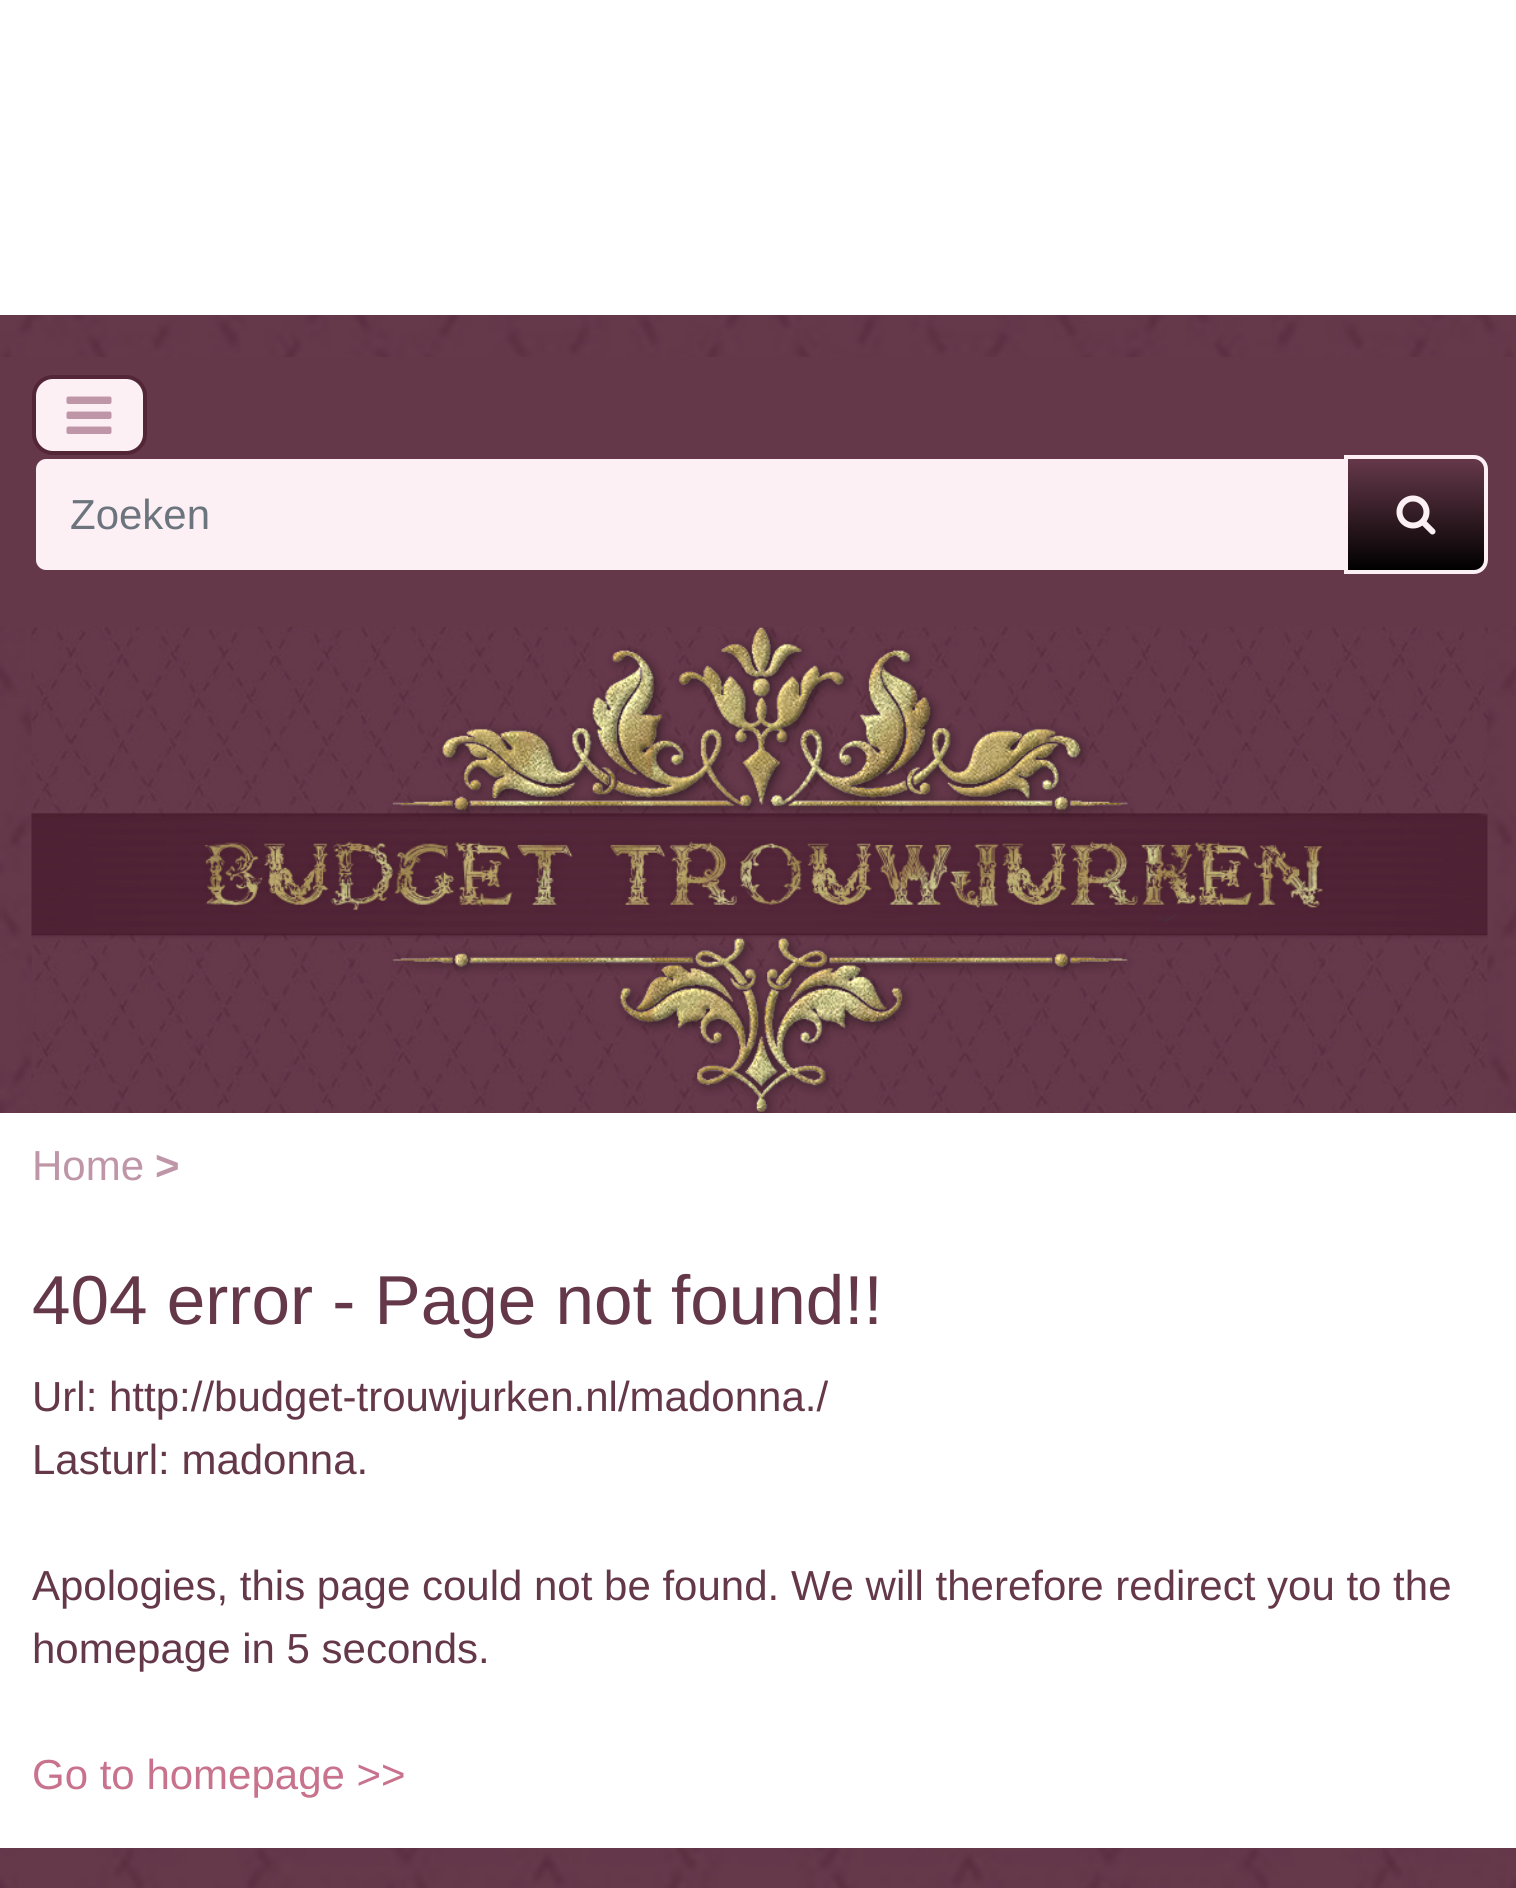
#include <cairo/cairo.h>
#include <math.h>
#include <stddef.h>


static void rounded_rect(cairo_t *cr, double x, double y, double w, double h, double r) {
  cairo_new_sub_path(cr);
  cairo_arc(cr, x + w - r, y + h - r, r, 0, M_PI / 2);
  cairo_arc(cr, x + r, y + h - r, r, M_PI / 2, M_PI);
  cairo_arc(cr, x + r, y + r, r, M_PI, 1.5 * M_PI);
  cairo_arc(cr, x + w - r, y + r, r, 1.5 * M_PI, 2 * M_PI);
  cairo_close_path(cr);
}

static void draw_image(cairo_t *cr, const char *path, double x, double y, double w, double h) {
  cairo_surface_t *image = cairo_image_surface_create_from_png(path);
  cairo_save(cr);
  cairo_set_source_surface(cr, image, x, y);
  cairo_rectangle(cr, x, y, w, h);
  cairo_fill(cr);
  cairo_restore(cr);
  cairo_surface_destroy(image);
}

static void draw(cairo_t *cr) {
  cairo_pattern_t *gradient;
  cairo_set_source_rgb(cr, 1, 1, 1);
  cairo_paint(cr);
  draw_image(cr, "images/1.png", 0, 315, 1516, 1573);
  cairo_set_source_rgb(cr, 101 / 255.0, 56 / 255.0, 73 / 255.0);
  cairo_rectangle(cr, 0, 357, 1516, 270);
  cairo_fill(cr);
  cairo_set_source_rgb(cr, 252 / 255.0, 240 / 255.0, 245 / 255.0);
  rounded_rect(cr, 34, 377, 111, 76, 19);
  cairo_fill_preserve(cr);
  cairo_set_source_rgb(cr, 82 / 255.0, 38 / 255.0, 54 / 255.0);
  cairo_set_line_width(cr, 4);
  cairo_stroke(cr);
  draw_image(cr, "images/2.png", 66, 396, 46, 38);
  cairo_set_source_rgb(cr, 252 / 255.0, 240 / 255.0, 245 / 255.0);
  cairo_new_path(cr);
  cairo_move_to(cr, 46, 457);
  cairo_line_to(cr, 1346, 457);
  cairo_line_to(cr, 1346, 572);
  cairo_line_to(cr, 46, 572);
  cairo_curve_to(cr, 39.5, 572, 34, 566.5, 34, 560);
  cairo_line_to(cr, 34, 469);
  cairo_curve_to(cr, 34, 462.5, 39.5, 457, 46, 457);
  cairo_close_path(cr);
  cairo_fill_preserve(cr);
  cairo_set_source_rgb(cr, 101 / 255.0, 56 / 255.0, 73 / 255.0);
  cairo_stroke(cr);
  cairo_save(cr);
  cairo_new_path(cr);
  cairo_move_to(cr, 1344, 455);
  cairo_line_to(cr, 1474, 455);
  cairo_curve_to(cr, 1481.5, 455, 1488, 461.5, 1488, 469);
  cairo_line_to(cr, 1488, 560);
  cairo_curve_to(cr, 1488, 567.5, 1481.5, 574, 1474, 574);
  cairo_line_to(cr, 1344, 574);
  cairo_close_path(cr);
  cairo_clip(cr);
  gradient = cairo_pattern_create_linear(1416, 459, 1416, 571);
  cairo_pattern_add_color_stop_rgba(gradient, 0, 101 / 255.0, 56 / 255.0, 73 / 255.0, 1);
  cairo_pattern_add_color_stop_rgba(gradient, 1, 0, 0, 0, 1);
  cairo_set_source(cr, gradient);
  cairo_pattern_destroy(gradient);
  cairo_rectangle(cr, 1348, 459, 140, 112);
  cairo_fill(cr);
  cairo_restore(cr);
  cairo_new_path(cr);
  cairo_move_to(cr, 1346, 457);
  cairo_line_to(cr, 1474, 457);
  cairo_curve_to(cr, 1480.5, 457, 1486, 462.5, 1486, 469);
  cairo_line_to(cr, 1486, 560);
  cairo_curve_to(cr, 1486, 566.5, 1480.5, 572, 1474, 572);
  cairo_line_to(cr, 1346, 572);
  cairo_close_path(cr);
  cairo_set_source_rgb(cr, 252 / 255.0, 240 / 255.0, 245 / 255.0);
  cairo_stroke(cr);
  draw_image(cr, "images/3.png", 1396, 495, 40, 40);
  draw_image(cr, "images/4.png", 31, 627, 1457, 486);
  cairo_set_source_rgb(cr, 1, 1, 1);
  cairo_rectangle(cr, 0, 1113, 1516, 735);
  cairo_fill(cr);
  cairo_select_font_face(cr, "Liberation Sans", CAIRO_FONT_SLANT_NORMAL, CAIRO_FONT_WEIGHT_NORMAL);
  cairo_set_font_size(cr, 42);
  cairo_set_source_rgb(cr, 108 / 255.0, 117 / 255.0, 125 / 255.0);
  cairo_move_to(cr, 70, 529);
  cairo_show_text(cr, "Zoeken");
  cairo_set_source_rgb(cr, 191 / 255.0, 150 / 255.0, 167 / 255.0);
  cairo_move_to(cr, 32, 1180);
  cairo_show_text(cr, "Home");
  cairo_select_font_face(cr, "Liberation Sans", CAIRO_FONT_SLANT_NORMAL, CAIRO_FONT_WEIGHT_BOLD);
  cairo_move_to(cr, 155, 1180);
  cairo_show_text(cr, ">");
  cairo_select_font_face(cr, "Liberation Sans", CAIRO_FONT_SLANT_NORMAL, CAIRO_FONT_WEIGHT_NORMAL);
  cairo_set_font_size(cr, 69.25);
  cairo_set_source_rgb(cr, 101 / 255.0, 56 / 255.0, 73 / 255.0);
  cairo_move_to(cr, 32, 1324);
  cairo_show_text(cr, "404 error - Page not found!!");
  cairo_set_font_size(cr, 42);
  cairo_move_to(cr, 32, 1411);
  cairo_show_text(cr, "Url: http://budget-trouwjurken.nl/madonna./");
  cairo_move_to(cr, 32, 1474);
  cairo_show_text(cr, "Lasturl: madonna.");
  cairo_move_to(cr, 32, 1600);
  cairo_show_text(cr, "Apologies, this page could not be found. We will therefore redirect you to the");
  cairo_move_to(cr, 32, 1663);
  cairo_show_text(cr, "homepage in 5 seconds.");
  cairo_set_source_rgb(cr, 200 / 255.0, 114 / 255.0, 141 / 255.0);
  cairo_move_to(cr, 32, 1789);
  cairo_show_text(cr, "Go to homepage >>");
}

int main(void) {
  cairo_surface_t *surface = cairo_image_surface_create(CAIRO_FORMAT_RGB24, 1516, 1888);
  cairo_t *cr = cairo_create(surface);
  cairo_font_options_t *options = cairo_font_options_create();
  cairo_font_options_set_hint_metrics(options, CAIRO_HINT_METRICS_OFF);
  cairo_font_options_set_hint_style(options, CAIRO_HINT_STYLE_NONE);
  cairo_set_font_options(cr, options);
  cairo_set_miter_limit(cr, 4);
  draw(cr);
  cairo_surface_write_to_png(surface, "out.png");
  cairo_font_options_destroy(options);
  cairo_destroy(cr);
  cairo_surface_destroy(surface);
  return 0;
}
